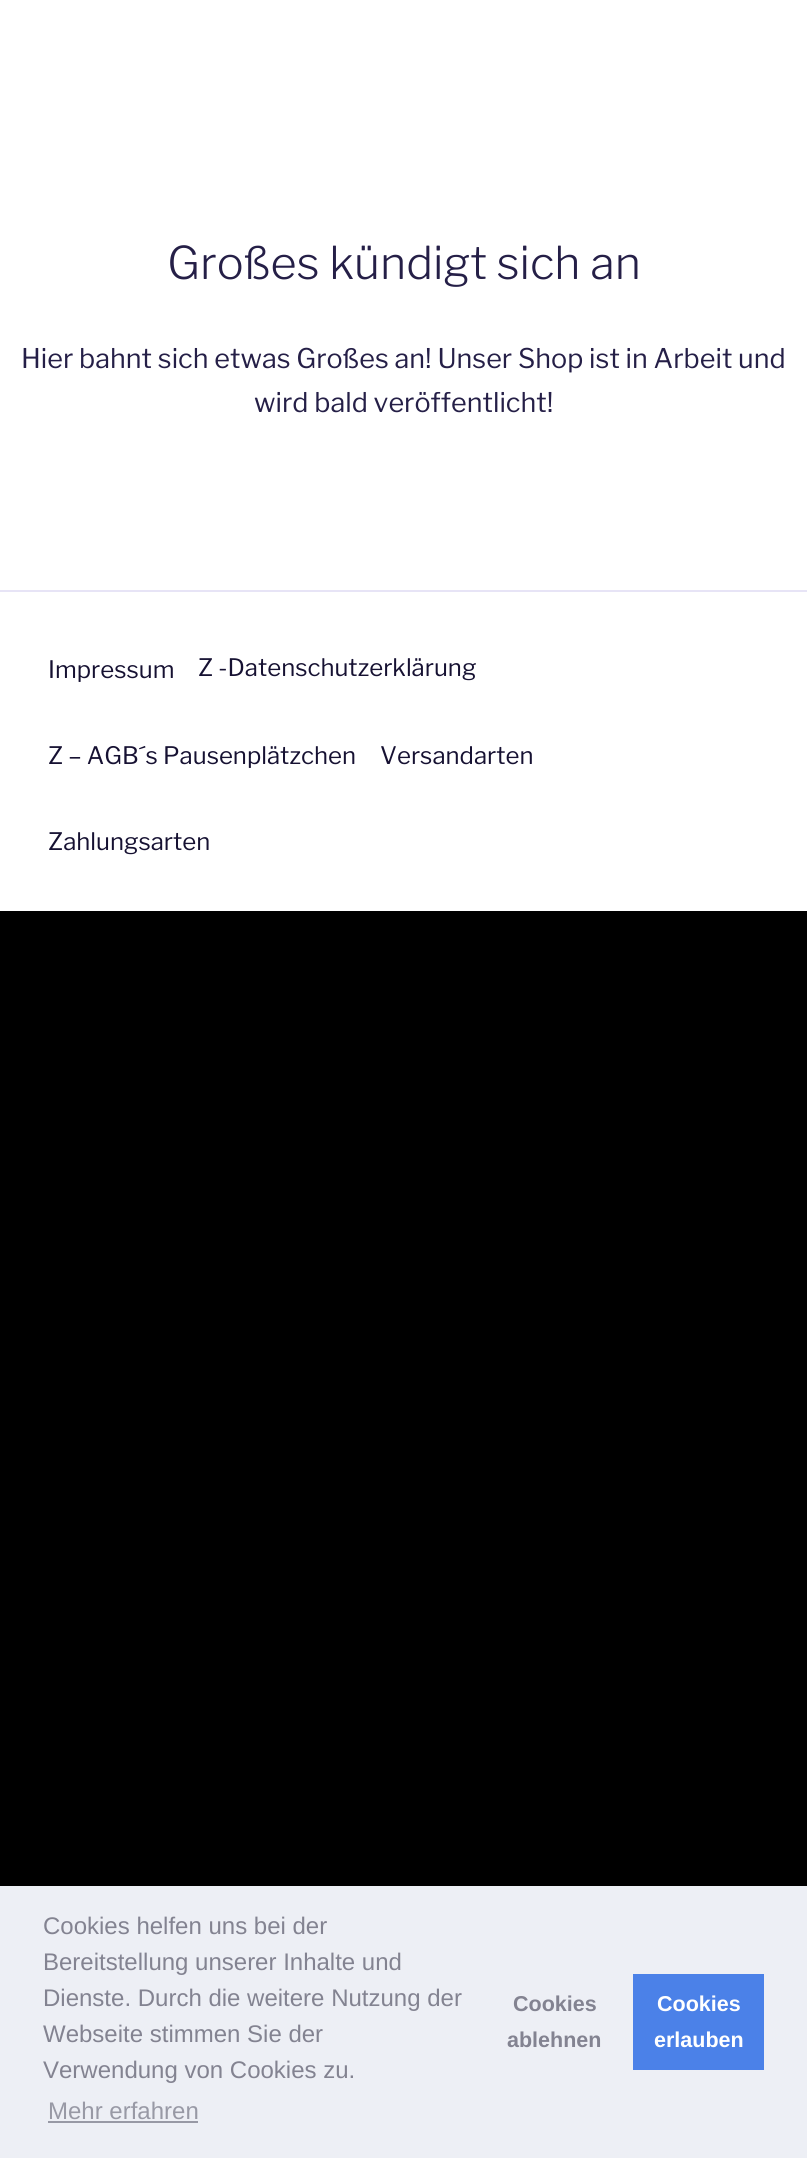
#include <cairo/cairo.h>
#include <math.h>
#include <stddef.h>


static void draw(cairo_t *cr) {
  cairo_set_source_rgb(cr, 0, 0, 0);
  cairo_paint(cr);
  cairo_set_source_rgb(cr, 1, 1, 1);
  cairo_rectangle(cr, 0, 0, 807, 911);
  cairo_fill(cr);
  cairo_set_source_rgb(cr, 231 / 255.0, 228 / 255.0, 246 / 255.0);
  cairo_rectangle(cr, 0, 590, 807, 2);
  cairo_fill(cr);
  cairo_set_source_rgb(cr, 237 / 255.0, 239 / 255.0, 245 / 255.0);
  cairo_rectangle(cr, 0, 1886, 807, 272);
  cairo_fill(cr);
  cairo_set_source_rgb(cr, 152 / 255.0, 153 / 255.0, 165 / 255.0);
  cairo_rectangle(cr, 48, 2121, 150, 2);
  cairo_fill(cr);
  cairo_set_source_rgb(cr, 75 / 255.0, 129 / 255.0, 232 / 255.0);
  cairo_rectangle(cr, 633, 1974, 131, 96);
  cairo_fill(cr);
  cairo_select_font_face(cr, "Libre Franklin Thin", CAIRO_FONT_SLANT_NORMAL, CAIRO_FONT_WEIGHT_NORMAL);
  cairo_set_font_size(cr, 45);
  cairo_set_source_rgb(cr, 37 / 255.0, 31 / 255.0, 71 / 255.0);
  cairo_move_to(cr, 167, 279);
  cairo_show_text(cr, "Großes kündigt sich an");
  cairo_select_font_face(cr, "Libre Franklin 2 Thin", CAIRO_FONT_SLANT_NORMAL, CAIRO_FONT_WEIGHT_NORMAL);
  cairo_set_font_size(cr, 27);
  cairo_move_to(cr, 21, 368);
  cairo_show_text(cr, "Hier bahnt sich etwas Großes an! Unser Shop ist in Arbeit und");
  cairo_move_to(cr, 254, 412);
  cairo_show_text(cr, "wird bald veröffentlicht!");
  cairo_set_font_size(cr, 24);
  cairo_set_source_rgb(cr, 22 / 255.0, 17 / 255.0, 50 / 255.0);
  cairo_move_to(cr, 48, 678);
  cairo_show_text(cr, "Impressum");
  cairo_move_to(cr, 198, 676);
  cairo_show_text(cr, "Z -Datenschutzerklärung");
  cairo_move_to(cr, 48, 764);
  cairo_show_text(cr, "Z – AGB´s Pausenplätzchen");
  cairo_move_to(cr, 380, 764);
  cairo_show_text(cr, "Versandarten");
  cairo_move_to(cr, 48, 850);
  cairo_show_text(cr, "Zahlungsarten");
  cairo_select_font_face(cr, "Liberation Sans", CAIRO_FONT_SLANT_NORMAL, CAIRO_FONT_WEIGHT_NORMAL);
  cairo_set_source_rgb(cr, 131 / 255.0, 131 / 255.0, 145 / 255.0);
  cairo_move_to(cr, 43, 1934);
  cairo_show_text(cr, "Cookies helfen uns bei der");
  cairo_move_to(cr, 43, 1970);
  cairo_show_text(cr, "Bereitstellung unserer Inhalte und");
  cairo_move_to(cr, 43, 2006);
  cairo_show_text(cr, "Dienste. Durch die weitere Nutzung der");
  cairo_move_to(cr, 43, 2042);
  cairo_show_text(cr, "Webseite stimmen Sie der");
  cairo_move_to(cr, 43, 2078);
  cairo_show_text(cr, "Verwendung von Cookies zu.");
  cairo_set_source_rgb(cr, 152 / 255.0, 153 / 255.0, 165 / 255.0);
  cairo_move_to(cr, 48, 2119);
  cairo_show_text(cr, "Mehr erfahren");
  cairo_select_font_face(cr, "Liberation Sans", CAIRO_FONT_SLANT_NORMAL, CAIRO_FONT_WEIGHT_BOLD);
  cairo_set_font_size(cr, 21.5);
  cairo_set_source_rgb(cr, 131 / 255.0, 131 / 255.0, 145 / 255.0);
  cairo_move_to(cr, 513, 2011);
  cairo_show_text(cr, "Cookies");
  cairo_move_to(cr, 507, 2047);
  cairo_show_text(cr, "ablehnen");
  cairo_set_source_rgb(cr, 1, 1, 1);
  cairo_move_to(cr, 657, 2011);
  cairo_show_text(cr, "Cookies");
  cairo_move_to(cr, 654, 2047);
  cairo_show_text(cr, "erlauben");
}

int main(void) {
  cairo_surface_t *surface = cairo_image_surface_create(CAIRO_FORMAT_RGB24, 807, 2158);
  cairo_t *cr = cairo_create(surface);
  cairo_font_options_t *options = cairo_font_options_create();
  cairo_font_options_set_hint_metrics(options, CAIRO_HINT_METRICS_OFF);
  cairo_font_options_set_hint_style(options, CAIRO_HINT_STYLE_NONE);
  cairo_set_font_options(cr, options);
  cairo_set_miter_limit(cr, 4);
  draw(cr);
  cairo_surface_write_to_png(surface, "out.png");
  cairo_font_options_destroy(options);
  cairo_destroy(cr);
  cairo_surface_destroy(surface);
  return 0;
}
